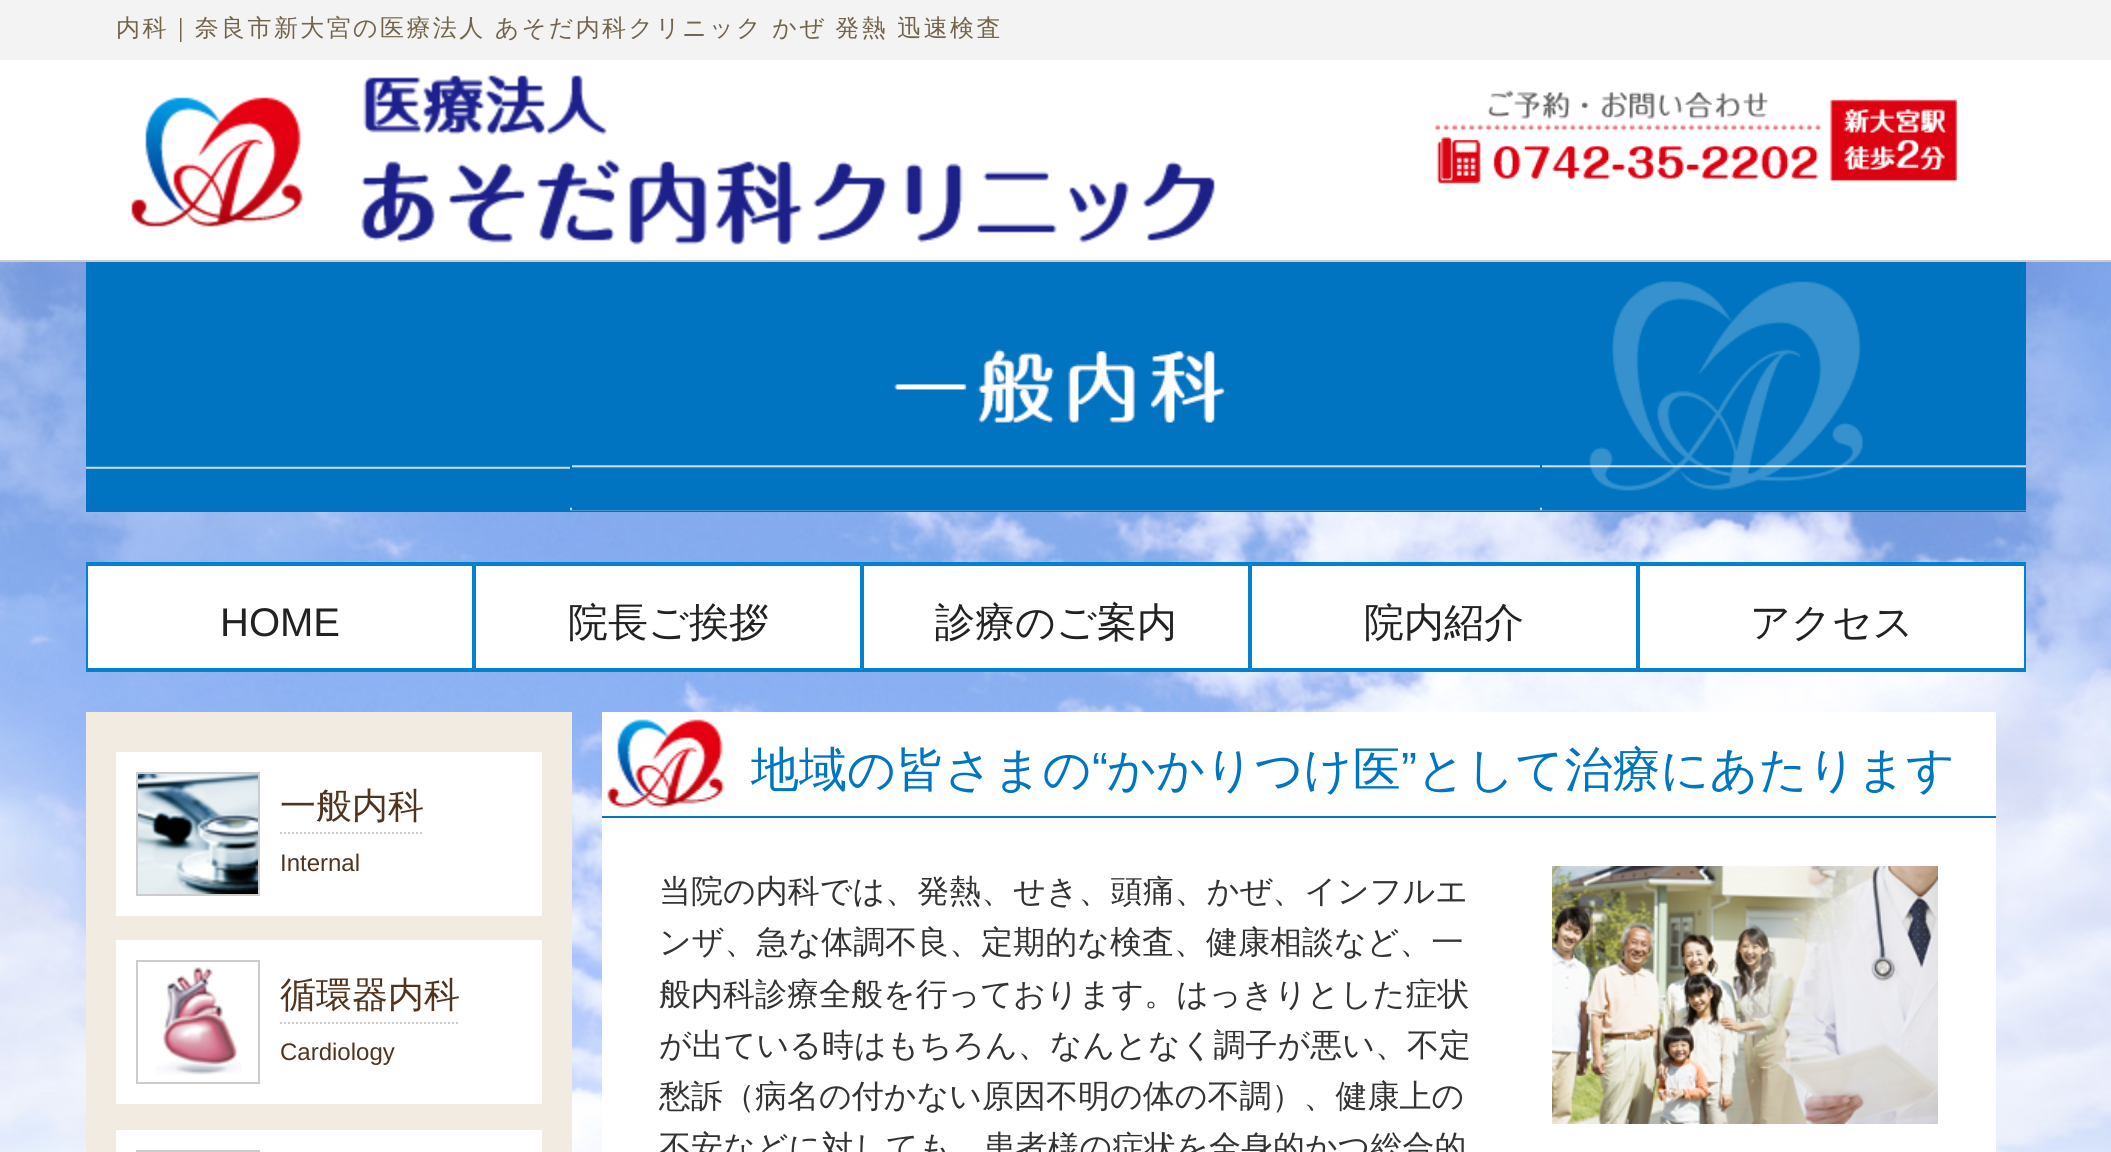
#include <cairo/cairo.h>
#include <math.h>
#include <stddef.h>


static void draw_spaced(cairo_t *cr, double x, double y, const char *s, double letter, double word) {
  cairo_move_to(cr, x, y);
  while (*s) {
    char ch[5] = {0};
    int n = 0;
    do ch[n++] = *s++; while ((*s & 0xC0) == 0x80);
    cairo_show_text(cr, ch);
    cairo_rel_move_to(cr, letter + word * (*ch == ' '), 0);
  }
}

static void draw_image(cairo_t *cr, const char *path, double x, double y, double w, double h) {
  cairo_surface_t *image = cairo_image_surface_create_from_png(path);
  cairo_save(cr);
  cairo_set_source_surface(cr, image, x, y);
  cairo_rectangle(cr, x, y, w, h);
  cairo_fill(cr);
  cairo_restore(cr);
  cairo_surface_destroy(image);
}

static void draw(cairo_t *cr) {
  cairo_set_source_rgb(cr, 1, 1, 1);
  cairo_paint(cr);
  draw_image(cr, "images/1.png", 0, 262, 2111, 890);
  cairo_set_source_rgb(cr, 204 / 255.0, 204 / 255.0, 204 / 255.0);
  cairo_rectangle(cr, 0, 260, 2111, 2);
  cairo_fill(cr);
  cairo_set_source_rgb(cr, 243 / 255.0, 243 / 255.0, 243 / 255.0);
  cairo_rectangle(cr, 0, 0, 2111, 60);
  cairo_fill(cr);
  draw_image(cr, "images/2.png", 131, 75, 1084, 170);
  draw_image(cr, "images/3.png", 1435, 90, 523, 94);
  draw_image(cr, "images/4.png", 86, 262, 1940, 250);
  draw_image(cr, "images/5.png", 86, 466, 484, 45);
  draw_image(cr, "images/6.png", 572, 349, 968, 161);
  draw_image(cr, "images/7.png", 1542, 280, 484, 230);
  cairo_set_source_rgb(cr, 2 / 255.0, 129 / 255.0, 206 / 255.0);
  cairo_rectangle(cr, 86, 562, 1940, 4);
  cairo_fill(cr);
  cairo_set_source_rgb(cr, 1, 1, 1);
  cairo_rectangle(cr, 88, 566, 384, 102);
  cairo_fill(cr);
  cairo_set_source_rgb(cr, 2 / 255.0, 129 / 255.0, 206 / 255.0);
  cairo_rectangle(cr, 472, 566, 2, 106);
  cairo_fill(cr);
  cairo_rectangle(cr, 86, 668, 388, 4);
  cairo_fill(cr);
  cairo_rectangle(cr, 86, 566, 2, 106);
  cairo_fill(cr);
  cairo_set_source_rgb(cr, 1, 1, 1);
  cairo_rectangle(cr, 476, 566, 384, 102);
  cairo_fill(cr);
  cairo_set_source_rgb(cr, 2 / 255.0, 129 / 255.0, 206 / 255.0);
  cairo_rectangle(cr, 860, 566, 2, 106);
  cairo_fill(cr);
  cairo_rectangle(cr, 474, 668, 388, 4);
  cairo_fill(cr);
  cairo_rectangle(cr, 474, 566, 2, 106);
  cairo_fill(cr);
  cairo_set_source_rgb(cr, 1, 1, 1);
  cairo_rectangle(cr, 864, 566, 384, 102);
  cairo_fill(cr);
  cairo_set_source_rgb(cr, 2 / 255.0, 129 / 255.0, 206 / 255.0);
  cairo_rectangle(cr, 1248, 566, 2, 106);
  cairo_fill(cr);
  cairo_rectangle(cr, 862, 668, 388, 4);
  cairo_fill(cr);
  cairo_rectangle(cr, 862, 566, 2, 106);
  cairo_fill(cr);
  cairo_set_source_rgb(cr, 1, 1, 1);
  cairo_rectangle(cr, 1252, 566, 384, 102);
  cairo_fill(cr);
  cairo_set_source_rgb(cr, 2 / 255.0, 129 / 255.0, 206 / 255.0);
  cairo_rectangle(cr, 1636, 566, 2, 106);
  cairo_fill(cr);
  cairo_rectangle(cr, 1250, 668, 388, 4);
  cairo_fill(cr);
  cairo_rectangle(cr, 1250, 566, 2, 106);
  cairo_fill(cr);
  cairo_set_source_rgb(cr, 1, 1, 1);
  cairo_rectangle(cr, 1640, 566, 384, 102);
  cairo_fill(cr);
  cairo_set_source_rgb(cr, 2 / 255.0, 129 / 255.0, 206 / 255.0);
  cairo_rectangle(cr, 2024, 566, 2, 106);
  cairo_fill(cr);
  cairo_rectangle(cr, 1638, 668, 388, 4);
  cairo_fill(cr);
  cairo_rectangle(cr, 1638, 566, 2, 106);
  cairo_fill(cr);
  cairo_set_source_rgb(cr, 241 / 255.0, 235 / 255.0, 226 / 255.0);
  cairo_rectangle(cr, 86, 712, 486, 440);
  cairo_fill(cr);
  cairo_set_source_rgb(cr, 1, 1, 1);
  cairo_rectangle(cr, 116, 752, 426, 164);
  cairo_fill(cr);
  cairo_rectangle(cr, 137, 773, 122, 122);
  cairo_set_source_rgb(cr, 204 / 255.0, 204 / 255.0, 204 / 255.0);
  cairo_stroke(cr);
  draw_image(cr, "images/8.png", 138, 774, 120, 120);
  cairo_new_path(cr);
  cairo_move_to(cr, 280, 833);
  cairo_line_to(cr, 424, 833);
  cairo_set_dash(cr, (double[]){2, 2}, 2, 0);
  cairo_stroke(cr);
  cairo_set_source_rgb(cr, 1, 1, 1);
  cairo_rectangle(cr, 116, 940, 426, 164);
  cairo_fill(cr);
  cairo_rectangle(cr, 137, 961, 122, 122);
  cairo_set_source_rgb(cr, 204 / 255.0, 204 / 255.0, 204 / 255.0);
  cairo_set_dash(cr, NULL, 0, 0);
  cairo_stroke(cr);
  draw_image(cr, "images/9.png", 156, 967, 86, 108);
  cairo_new_path(cr);
  cairo_move_to(cr, 280, 1023);
  cairo_line_to(cr, 460, 1023);
  cairo_set_dash(cr, (double[]){2, 2}, 2, 0);
  cairo_stroke(cr);
  cairo_set_source_rgb(cr, 1, 1, 1);
  cairo_rectangle(cr, 116, 1130, 426, 22);
  cairo_fill(cr);
  cairo_rectangle(cr, 137, 1151, 122, 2);
  cairo_set_source_rgb(cr, 204 / 255.0, 204 / 255.0, 204 / 255.0);
  cairo_set_dash(cr, NULL, 0, 0);
  cairo_stroke(cr);
  cairo_set_source_rgb(cr, 1, 1, 1);
  cairo_rectangle(cr, 602, 712, 1394, 104);
  cairo_fill(cr);
  draw_image(cr, "images/10.png", 602, 719, 1394, 89);
  cairo_set_source_rgb(cr, 0, 120 / 255.0, 195 / 255.0);
  cairo_rectangle(cr, 602, 816, 1394, 2);
  cairo_fill(cr);
  cairo_set_source_rgb(cr, 1, 1, 1);
  cairo_rectangle(cr, 602, 818, 1394, 334);
  cairo_fill(cr);
  draw_image(cr, "images/11.png", 1552, 866, 386, 258);
  cairo_select_font_face(cr, "WenQuanYi Zen Hei Medium", CAIRO_FONT_SLANT_NORMAL, CAIRO_FONT_WEIGHT_NORMAL);
  cairo_set_font_size(cr, 24);
  cairo_set_source_rgb(cr, 115 / 255.0, 99 / 255.0, 74 / 255.0);
  draw_spaced(cr, 116, 36, "内科｜奈良市新大宮の医療法人 あそだ内科クリニック かぜ 発熱 迅速検査", 2.4, -0.5);
  cairo_select_font_face(cr, "Liberation Sans", CAIRO_FONT_SLANT_NORMAL, CAIRO_FONT_WEIGHT_NORMAL);
  cairo_set_font_size(cr, 40);
  cairo_set_source_rgb(cr, 34 / 255.0, 34 / 255.0, 34 / 255.0);
  cairo_move_to(cr, 220, 636);
  cairo_show_text(cr, "HOME");
  cairo_select_font_face(cr, "WenQuanYi Zen Hei Medium", CAIRO_FONT_SLANT_NORMAL, CAIRO_FONT_WEIGHT_NORMAL);
  cairo_move_to(cr, 568, 636);
  cairo_show_text(cr, "院長ご挨拶");
  cairo_move_to(cr, 935, 636);
  cairo_show_text(cr, "診療のご案内");
  cairo_move_to(cr, 1364, 636);
  cairo_show_text(cr, "院内紹介");
  cairo_move_to(cr, 1750, 636);
  cairo_show_text(cr, "アクセス");
  cairo_set_font_size(cr, 36);
  cairo_set_source_rgb(cr, 80 / 255.0, 52 / 255.0, 31 / 255.0);
  cairo_move_to(cr, 280, 818);
  cairo_show_text(cr, "一般内科");
  cairo_select_font_face(cr, "Liberation Sans", CAIRO_FONT_SLANT_NORMAL, CAIRO_FONT_WEIGHT_NORMAL);
  cairo_set_font_size(cr, 24);
  cairo_move_to(cr, 280, 871);
  cairo_show_text(cr, "Internal");
  cairo_select_font_face(cr, "WenQuanYi Zen Hei Medium", CAIRO_FONT_SLANT_NORMAL, CAIRO_FONT_WEIGHT_NORMAL);
  cairo_set_font_size(cr, 36);
  cairo_move_to(cr, 280, 1007);
  cairo_show_text(cr, "循環器内科");
  cairo_select_font_face(cr, "Liberation Sans", CAIRO_FONT_SLANT_NORMAL, CAIRO_FONT_WEIGHT_NORMAL);
  cairo_set_font_size(cr, 24);
  cairo_move_to(cr, 280, 1060);
  cairo_show_text(cr, "Cardiology");
  cairo_select_font_face(cr, "WenQuanYi Zen Hei Medium", CAIRO_FONT_SLANT_NORMAL, CAIRO_FONT_WEIGHT_NORMAL);
  cairo_set_font_size(cr, 48);
  cairo_set_source_rgb(cr, 0, 118 / 255.0, 194 / 255.0);
  cairo_move_to(cr, 751, 786);
  cairo_show_text(cr, "地域の皆さまの");
  cairo_select_font_face(cr, "Liberation Sans", CAIRO_FONT_SLANT_NORMAL, CAIRO_FONT_WEIGHT_NORMAL);
  cairo_move_to(cr, 1092, 786);
  cairo_show_text(cr, "“");
  cairo_select_font_face(cr, "WenQuanYi Zen Hei Medium", CAIRO_FONT_SLANT_NORMAL, CAIRO_FONT_WEIGHT_NORMAL);
  cairo_move_to(cr, 1107, 786);
  cairo_show_text(cr, "かかりつけ医");
  cairo_select_font_face(cr, "Liberation Sans", CAIRO_FONT_SLANT_NORMAL, CAIRO_FONT_WEIGHT_NORMAL);
  cairo_move_to(cr, 1401, 786);
  cairo_show_text(cr, "”");
  cairo_select_font_face(cr, "WenQuanYi Zen Hei Medium", CAIRO_FONT_SLANT_NORMAL, CAIRO_FONT_WEIGHT_NORMAL);
  cairo_move_to(cr, 1417, 786);
  cairo_show_text(cr, "として治療にあたります");
  cairo_set_font_size(cr, 32);
  cairo_set_source_rgb(cr, 51 / 255.0, 51 / 255.0, 51 / 255.0);
  cairo_move_to(cr, 659, 902);
  cairo_show_text(cr, "当院の内科では、発熱、せき、頭痛、かぜ、インフルエ");
  cairo_move_to(cr, 659, 953);
  cairo_show_text(cr, "ンザ、急な体調不良、定期的な検査、健康相談など、一");
  cairo_move_to(cr, 659, 1005);
  cairo_show_text(cr, "般内科診療全般を行っております。はっきりとした症状");
  cairo_move_to(cr, 659, 1056);
  cairo_show_text(cr, "が出ている時はもちろん、なんとなく調子が悪い、不定");
  cairo_move_to(cr, 659, 1107);
  cairo_show_text(cr, "愁訴（病名の付かない原因不明の体の不調）、健康上の");
  cairo_move_to(cr, 659, 1158);
  cairo_show_text(cr, "不安などに対しても、患者様の症状を全身的かつ総合的");
}

int main(void) {
  cairo_surface_t *surface = cairo_image_surface_create(CAIRO_FORMAT_RGB24, 2111, 1152);
  cairo_t *cr = cairo_create(surface);
  cairo_font_options_t *options = cairo_font_options_create();
  cairo_font_options_set_hint_metrics(options, CAIRO_HINT_METRICS_OFF);
  cairo_font_options_set_hint_style(options, CAIRO_HINT_STYLE_NONE);
  cairo_set_font_options(cr, options);
  cairo_set_miter_limit(cr, 4);
  draw(cr);
  cairo_surface_write_to_png(surface, "out.png");
  cairo_font_options_destroy(options);
  cairo_destroy(cr);
  cairo_surface_destroy(surface);
  return 0;
}
